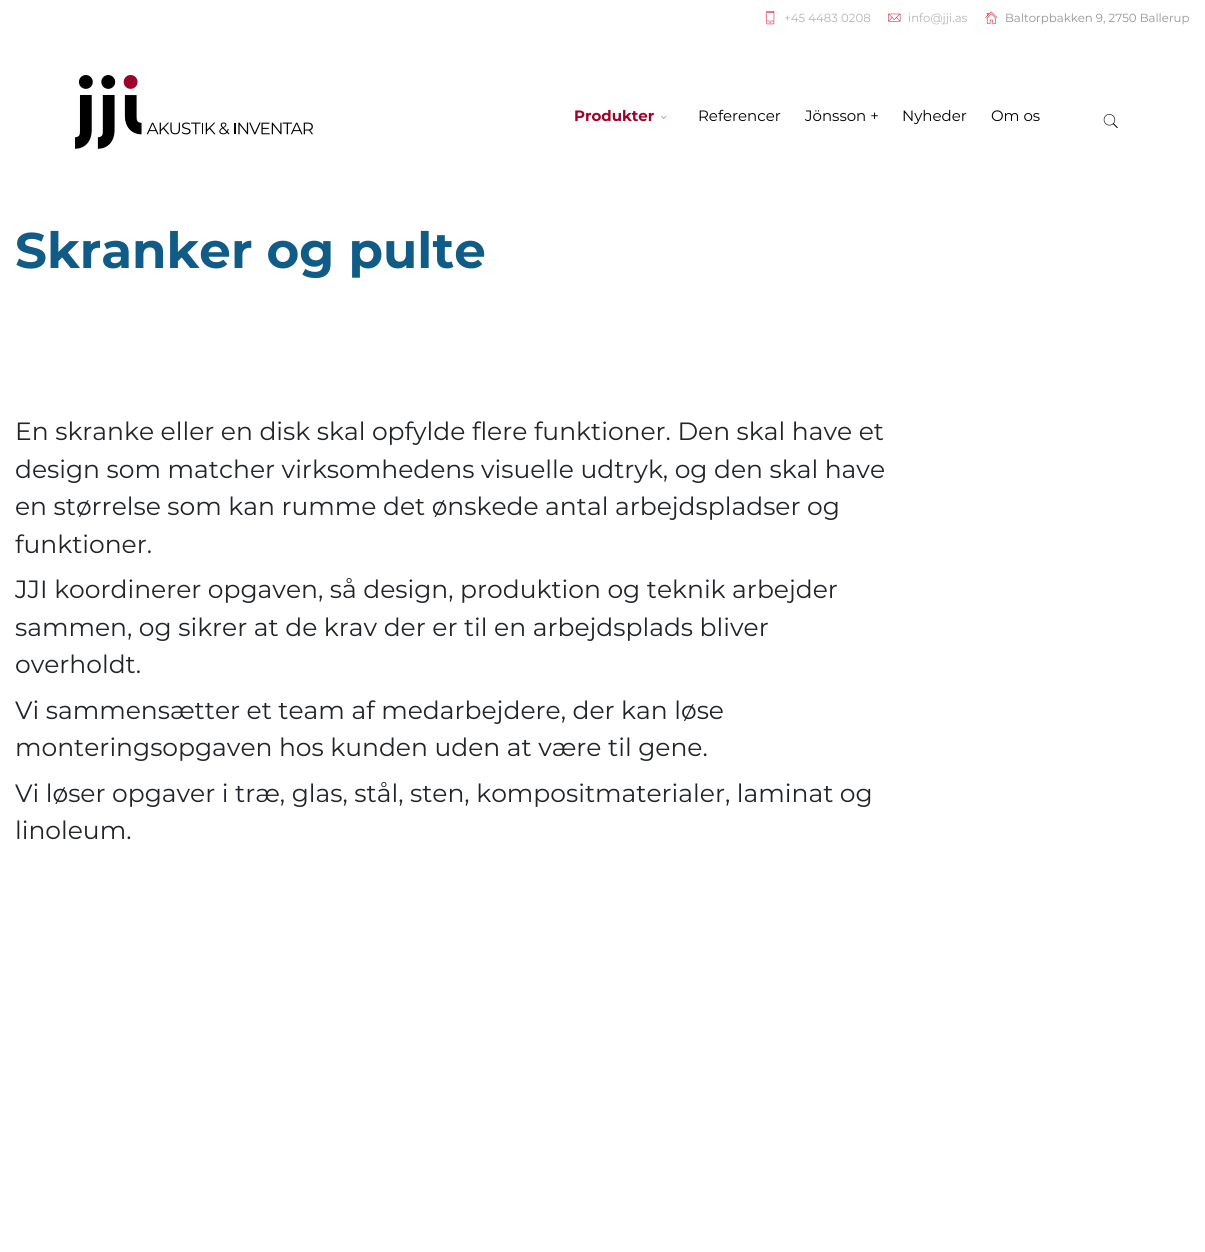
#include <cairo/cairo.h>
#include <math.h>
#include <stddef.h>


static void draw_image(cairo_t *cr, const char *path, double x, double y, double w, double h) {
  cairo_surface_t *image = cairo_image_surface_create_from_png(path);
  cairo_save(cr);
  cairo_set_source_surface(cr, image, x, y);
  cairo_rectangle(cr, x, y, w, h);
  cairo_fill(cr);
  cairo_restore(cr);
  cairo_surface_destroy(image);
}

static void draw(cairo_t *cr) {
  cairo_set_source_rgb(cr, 1, 1, 1);
  cairo_paint(cr);
  draw_image(cr, "images/1.png", 766, 11, 9, 14);
  draw_image(cr, "images/2.png", 888, 13, 13, 9);
  draw_image(cr, "images/3.png", 985, 11, 13, 13);
  draw_image(cr, "images/4.png", 75, 75, 238, 74);
  draw_image(cr, "images/5.png", 661, 116, 6, 3);
  draw_image(cr, "images/6.png", 1103, 114, 15, 15);
  cairo_select_font_face(cr, "Montserrat", CAIRO_FONT_SLANT_NORMAL, CAIRO_FONT_WEIGHT_NORMAL);
  cairo_set_font_size(cr, 11.75);
  cairo_set_source_rgb(cr, 179 / 255.0, 179 / 255.0, 179 / 255.0);
  cairo_move_to(cr, 784, 22);
  cairo_show_text(cr, "+45 4483 0208");
  cairo_move_to(cr, 908, 22);
  cairo_show_text(cr, "info@jji.as");
  cairo_set_source_rgb(cr, 148 / 255.0, 148 / 255.0, 148 / 255.0);
  cairo_move_to(cr, 1005, 22);
  cairo_show_text(cr, "Baltorpbakken 9, 2750 Ballerup");
  cairo_select_font_face(cr, "Montserrat", CAIRO_FONT_SLANT_NORMAL, CAIRO_FONT_WEIGHT_BOLD);
  cairo_set_font_size(cr, 15);
  cairo_set_source_rgb(cr, 158 / 255.0, 3 / 255.0, 42 / 255.0);
  cairo_move_to(cr, 574, 121);
  cairo_show_text(cr, "Produkter");
  cairo_select_font_face(cr, "Montserrat", CAIRO_FONT_SLANT_NORMAL, CAIRO_FONT_WEIGHT_NORMAL);
  cairo_set_source_rgb(cr, 0, 0, 0);
  cairo_move_to(cr, 698, 121);
  cairo_show_text(cr, "Referencer");
  cairo_move_to(cr, 805, 121);
  cairo_show_text(cr, "Jönsson +");
  cairo_move_to(cr, 902, 121);
  cairo_show_text(cr, "Nyheder");
  cairo_move_to(cr, 991, 121);
  cairo_show_text(cr, "Om os");
  cairo_select_font_face(cr, "Montserrat", CAIRO_FONT_SLANT_NORMAL, CAIRO_FONT_WEIGHT_BOLD);
  cairo_set_font_size(cr, 50);
  cairo_set_source_rgb(cr, 17 / 255.0, 92 / 255.0, 134 / 255.0);
  cairo_move_to(cr, 15, 268);
  cairo_show_text(cr, "Skranker og pulte");
  cairo_select_font_face(cr, "Montserrat", CAIRO_FONT_SLANT_NORMAL, CAIRO_FONT_WEIGHT_NORMAL);
  cairo_set_font_size(cr, 25);
  cairo_set_source_rgb(cr, 33 / 255.0, 37 / 255.0, 41 / 255.0);
  cairo_move_to(cr, 15, 440);
  cairo_show_text(cr, "En skranke eller en disk skal opfylde flere funktioner. Den skal have et");
  cairo_move_to(cr, 15, 478);
  cairo_show_text(cr, "design som matcher virksomhedens visuelle udtryk, og den skal have");
  cairo_move_to(cr, 15, 515);
  cairo_show_text(cr, "en størrelse som kan rumme det ønskede antal arbejdspladser og");
  cairo_move_to(cr, 15, 553);
  cairo_show_text(cr, "funktioner.");
  cairo_move_to(cr, 15, 598);
  cairo_show_text(cr, "JJI koordinerer opgaven, så design, produktion og teknik arbejder");
  cairo_move_to(cr, 15, 636);
  cairo_show_text(cr, "sammen, og sikrer at de krav der er til en arbejdsplads bliver");
  cairo_move_to(cr, 15, 673);
  cairo_show_text(cr, "overholdt.");
  cairo_move_to(cr, 15, 719);
  cairo_show_text(cr, "Vi sammensætter et team af medarbejdere, der kan løse");
  cairo_move_to(cr, 15, 756);
  cairo_show_text(cr, "monteringsopgaven hos kunden uden at være til gene.");
  cairo_move_to(cr, 15, 802);
  cairo_show_text(cr, "Vi løser opgaver i træ, glas, stål, sten, kompositmaterialer, laminat og");
  cairo_move_to(cr, 15, 839);
  cairo_show_text(cr, "linoleum.");
}

int main(void) {
  cairo_surface_t *surface = cairo_image_surface_create(CAIRO_FORMAT_RGB24, 1205, 1252);
  cairo_t *cr = cairo_create(surface);
  cairo_font_options_t *options = cairo_font_options_create();
  cairo_font_options_set_hint_metrics(options, CAIRO_HINT_METRICS_OFF);
  cairo_font_options_set_hint_style(options, CAIRO_HINT_STYLE_NONE);
  cairo_set_font_options(cr, options);
  cairo_set_miter_limit(cr, 4);
  draw(cr);
  cairo_surface_write_to_png(surface, "out.png");
  cairo_font_options_destroy(options);
  cairo_destroy(cr);
  cairo_surface_destroy(surface);
  return 0;
}
